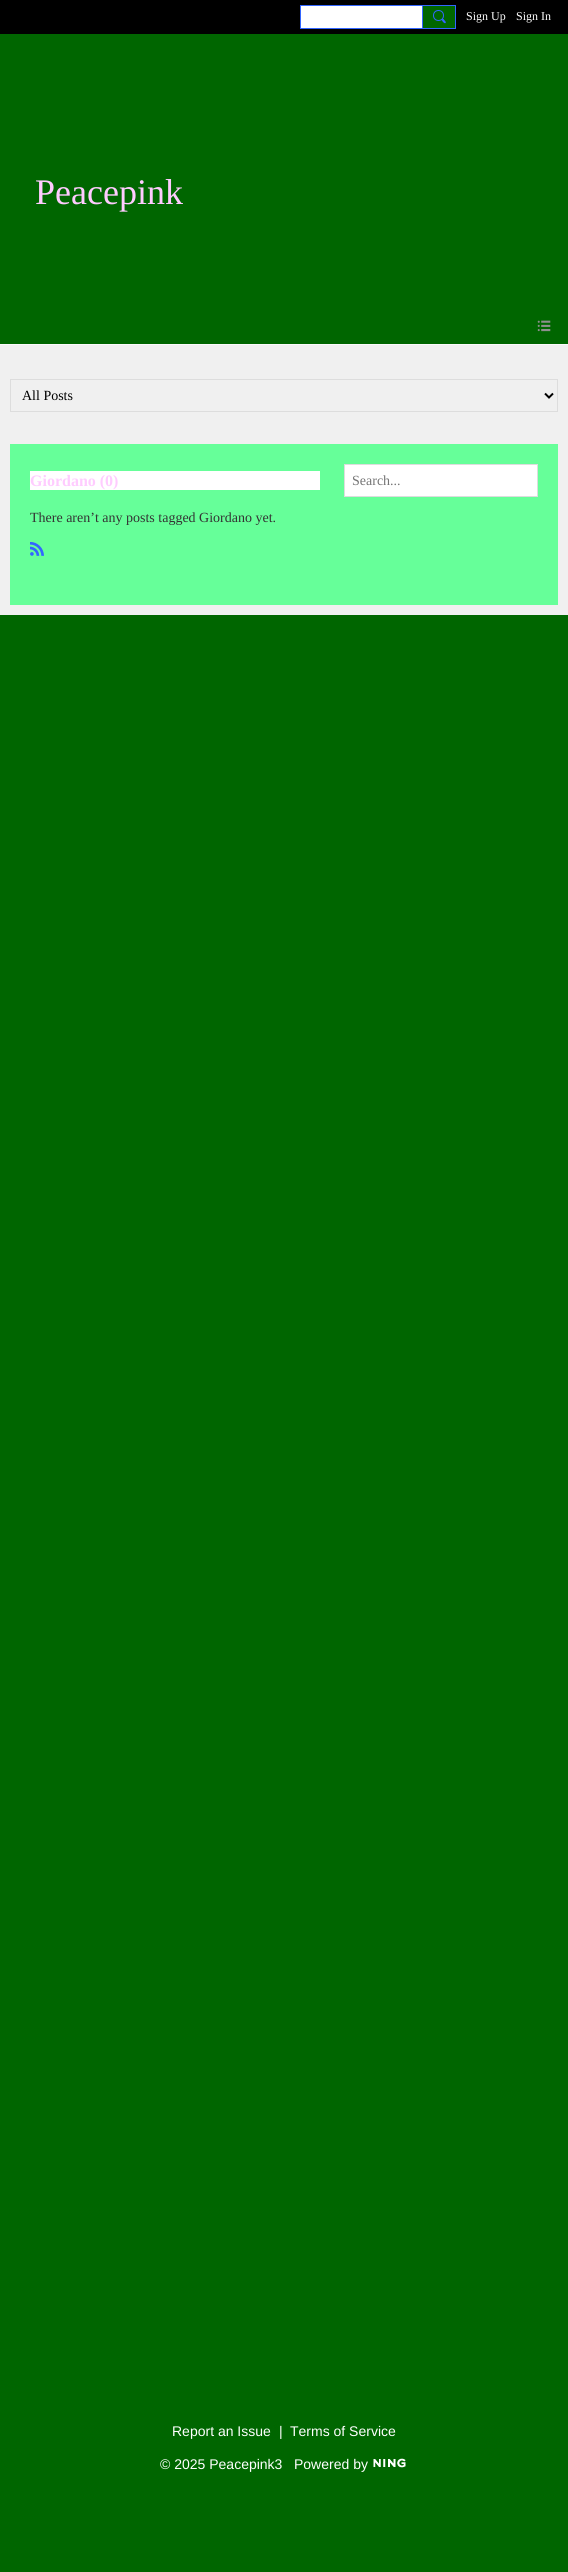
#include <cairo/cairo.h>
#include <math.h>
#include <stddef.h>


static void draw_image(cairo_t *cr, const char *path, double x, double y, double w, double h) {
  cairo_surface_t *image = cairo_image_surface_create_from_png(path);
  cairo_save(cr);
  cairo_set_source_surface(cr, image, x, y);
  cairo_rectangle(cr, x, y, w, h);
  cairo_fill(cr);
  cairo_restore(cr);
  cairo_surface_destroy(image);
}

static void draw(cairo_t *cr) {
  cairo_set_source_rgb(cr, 0, 102 / 255.0, 0);
  cairo_paint(cr);
  cairo_set_source_rgb(cr, 0, 0, 0);
  cairo_rectangle(cr, 0, 0, 568, 34);
  cairo_fill(cr);
  cairo_set_source_rgb(cr, 1, 1, 1);
  cairo_rectangle(cr, 300.5, 5.5, 122, 23);
  cairo_fill_preserve(cr);
  cairo_set_source_rgb(cr, 51 / 255.0, 102 / 255.0, 1);
  cairo_set_line_width(cr, 1);
  cairo_stroke(cr);
  cairo_set_source_rgb(cr, 0, 102 / 255.0, 0);
  cairo_rectangle(cr, 422.5, 5.5, 33, 23);
  cairo_fill_preserve(cr);
  cairo_set_source_rgb(cr, 51 / 255.0, 102 / 255.0, 1);
  cairo_stroke(cr);
  cairo_arc(cr, 438.5, 15.5, 5, 0, 2 * M_PI);
  cairo_stroke(cr);
  cairo_new_path(cr);
  cairo_move_to(cr, 443.5, 19);
  cairo_line_to(cr, 445.5, 21.5);
  cairo_curve_to(cr, 446, 22, 446, 22.5, 445.5, 23);
  cairo_curve_to(cr, 444.5, 24, 442.5, 21.5, 442, 20.5);
  cairo_curve_to(cr, 441, 19.5, 442.5, 18.5, 443.5, 19);
  cairo_close_path(cr);
  cairo_fill(cr);
  draw_image(cr, "images/1.png", 537, 320, 14, 12);
  cairo_set_source_rgb(cr, 240 / 255.0, 240 / 255.0, 240 / 255.0);
  cairo_rectangle(cr, 0, 345, 568, 270);
  cairo_fill(cr);
  cairo_set_source_rgb(cr, 251 / 255.0, 251 / 255.0, 251 / 255.0);
  cairo_rectangle(cr, 0, 344, 568, 1);
  cairo_fill(cr);
  cairo_rectangle(cr, 10.5, 379.5, 547, 32);
  cairo_set_source_rgb(cr, 221 / 255.0, 221 / 255.0, 221 / 255.0);
  cairo_stroke(cr);
  cairo_new_path(cr);
  cairo_move_to(cr, 545, 393.5);
  cairo_line_to(cr, 549, 397.5);
  cairo_line_to(cr, 553, 393.5);
  cairo_set_source_rgb(cr, 0, 0, 0);
  cairo_set_line_width(cr, 2);
  cairo_stroke(cr);
  cairo_set_source_rgb(cr, 102 / 255.0, 1, 153 / 255.0);
  cairo_rectangle(cr, 10, 444, 548, 161);
  cairo_fill(cr);
  cairo_set_source_rgb(cr, 1, 1, 1);
  cairo_rectangle(cr, 30, 471, 290, 19);
  cairo_fill(cr);
  cairo_rectangle(cr, 344.5, 464.5, 193, 32);
  cairo_fill_preserve(cr);
  cairo_set_source_rgb(cr, 221 / 255.0, 221 / 255.0, 221 / 255.0);
  cairo_set_line_width(cr, 1);
  cairo_stroke(cr);
  draw_image(cr, "images/2.png", 30, 542, 14, 14);
  draw_image(cr, "images/3.png", 373, 2458, 33, 10);
  cairo_select_font_face(cr, "Liberation Serif", CAIRO_FONT_SLANT_NORMAL, CAIRO_FONT_WEIGHT_NORMAL);
  cairo_set_font_size(cr, 12);
  cairo_set_source_rgb(cr, 1, 1, 1);
  cairo_move_to(cr, 466, 20);
  cairo_show_text(cr, "Sign Up");
  cairo_move_to(cr, 516, 20);
  cairo_show_text(cr, "Sign In");
  cairo_set_font_size(cr, 36);
  cairo_set_source_rgb(cr, 1, 204 / 255.0, 1);
  cairo_move_to(cr, 35, 204);
  cairo_show_text(cr, "Peacepink");
  cairo_set_font_size(cr, 14);
  cairo_set_source_rgb(cr, 0, 0, 0);
  cairo_move_to(cr, 22, 400);
  cairo_show_text(cr, "All Posts");
  cairo_select_font_face(cr, "Liberation Serif", CAIRO_FONT_SLANT_NORMAL, CAIRO_FONT_WEIGHT_BOLD);
  cairo_set_font_size(cr, 16);
  cairo_set_source_rgb(cr, 1, 204 / 255.0, 1);
  cairo_move_to(cr, 30, 486);
  cairo_show_text(cr, "Giordano (0)");
  cairo_select_font_face(cr, "Liberation Serif", CAIRO_FONT_SLANT_NORMAL, CAIRO_FONT_WEIGHT_NORMAL);
  cairo_set_font_size(cr, 14);
  cairo_set_source_rgb(cr, 117 / 255.0, 117 / 255.0, 117 / 255.0);
  cairo_move_to(cr, 352, 485);
  cairo_show_text(cr, "Search...");
  cairo_set_source_rgb(cr, 51 / 255.0, 51 / 255.0, 51 / 255.0);
  cairo_move_to(cr, 30, 522);
  cairo_show_text(cr, "There aren’t any posts tagged Giordano yet.");
  cairo_select_font_face(cr, "Liberation Sans", CAIRO_FONT_SLANT_NORMAL, CAIRO_FONT_WEIGHT_NORMAL);
  cairo_set_source_rgb(cr, 1, 1, 1);
  cairo_move_to(cr, 172, 2436);
  cairo_show_text(cr, "Report an Issue");
  cairo_move_to(cr, 279, 2436);
  cairo_show_text(cr, "|");
  cairo_move_to(cr, 290, 2436);
  cairo_show_text(cr, "Terms of Service");
  cairo_move_to(cr, 160, 2469);
  cairo_show_text(cr, "© 2025 Peacepink3");
  cairo_move_to(cr, 294, 2469);
  cairo_show_text(cr, "Powered by");
}

int main(void) {
  cairo_surface_t *surface = cairo_image_surface_create(CAIRO_FORMAT_RGB24, 568, 2572);
  cairo_t *cr = cairo_create(surface);
  cairo_font_options_t *options = cairo_font_options_create();
  cairo_font_options_set_hint_metrics(options, CAIRO_HINT_METRICS_OFF);
  cairo_font_options_set_hint_style(options, CAIRO_HINT_STYLE_NONE);
  cairo_set_font_options(cr, options);
  cairo_set_miter_limit(cr, 4);
  draw(cr);
  cairo_surface_write_to_png(surface, "out.png");
  cairo_font_options_destroy(options);
  cairo_destroy(cr);
  cairo_surface_destroy(surface);
  return 0;
}
